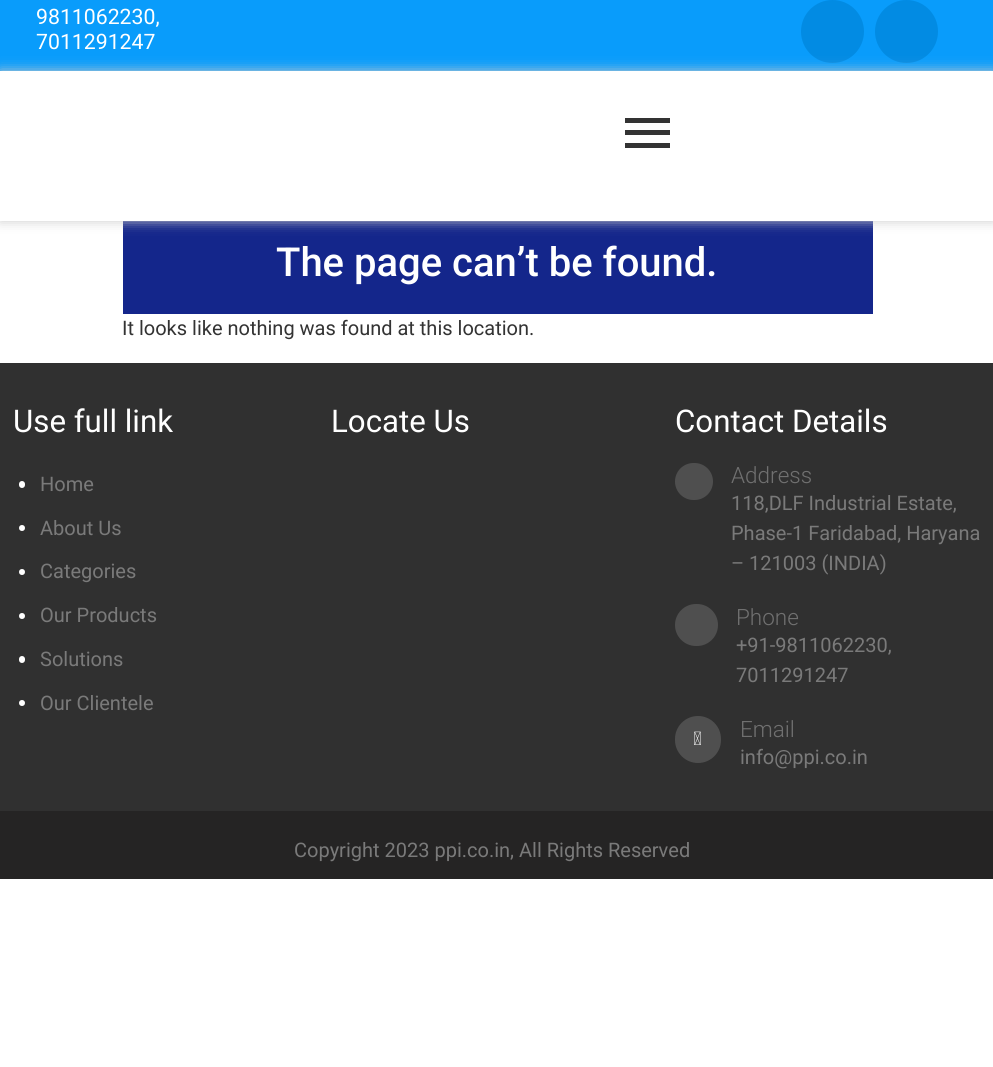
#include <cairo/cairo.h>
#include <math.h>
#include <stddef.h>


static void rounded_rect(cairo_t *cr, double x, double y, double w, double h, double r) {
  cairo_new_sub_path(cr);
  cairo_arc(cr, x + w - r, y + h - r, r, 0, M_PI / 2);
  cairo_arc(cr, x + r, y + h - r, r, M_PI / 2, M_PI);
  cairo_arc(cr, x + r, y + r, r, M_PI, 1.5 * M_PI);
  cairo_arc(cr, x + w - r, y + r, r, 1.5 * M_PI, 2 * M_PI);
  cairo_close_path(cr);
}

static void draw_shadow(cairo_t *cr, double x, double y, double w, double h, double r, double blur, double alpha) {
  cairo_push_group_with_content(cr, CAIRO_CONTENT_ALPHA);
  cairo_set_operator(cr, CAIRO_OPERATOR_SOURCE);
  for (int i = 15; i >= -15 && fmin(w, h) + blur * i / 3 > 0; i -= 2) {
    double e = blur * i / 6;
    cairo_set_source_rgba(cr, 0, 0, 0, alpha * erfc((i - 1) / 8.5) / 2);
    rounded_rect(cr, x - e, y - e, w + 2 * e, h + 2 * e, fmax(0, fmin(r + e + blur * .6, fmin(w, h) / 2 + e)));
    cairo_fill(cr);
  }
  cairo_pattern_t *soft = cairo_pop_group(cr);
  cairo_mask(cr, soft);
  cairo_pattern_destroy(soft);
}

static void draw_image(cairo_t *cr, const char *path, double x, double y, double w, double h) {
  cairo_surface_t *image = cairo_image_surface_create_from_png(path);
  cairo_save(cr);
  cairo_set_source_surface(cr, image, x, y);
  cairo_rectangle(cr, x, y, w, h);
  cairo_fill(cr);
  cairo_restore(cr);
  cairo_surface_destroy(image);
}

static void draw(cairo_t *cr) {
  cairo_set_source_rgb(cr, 1, 1, 1);
  cairo_paint(cr);
  cairo_set_source_rgb(cr, 9 / 255.0, 156 / 255.0, 251 / 255.0);
  cairo_rectangle(cr, 0, 0, 993, 71);
  cairo_fill(cr);
  cairo_set_source_rgb(cr, 2 / 255.0, 139 / 255.0, 227 / 255.0);
  cairo_arc(cr, 832.5, 31.5, 31.5, 0, 2 * M_PI);
  cairo_fill(cr);
  cairo_arc(cr, 906.5, 31.5, 31.5, 0, 2 * M_PI);
  cairo_fill(cr);
  cairo_set_source_rgb(cr, 20 / 255.0, 38 / 255.0, 139 / 255.0);
  cairo_rectangle(cr, 123, 221, 750, 93);
  cairo_fill(cr);
  cairo_save(cr);
  cairo_set_fill_rule(cr, CAIRO_FILL_RULE_EVEN_ODD);
  cairo_new_path(cr);
  cairo_move_to(cr, 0, 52);
  cairo_line_to(cr, 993, 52);
  cairo_line_to(cr, 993, 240);
  cairo_line_to(cr, 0, 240);
  cairo_close_path(cr);
  cairo_move_to(cr, 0, 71);
  cairo_line_to(cr, 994, 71);
  cairo_line_to(cr, 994, 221);
  cairo_line_to(cr, 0, 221);
  cairo_close_path(cr);
  cairo_clip(cr);
  cairo_set_source_rgb(cr, 204 / 255.0, 204 / 255.0, 204 / 255.0);
  draw_shadow(cr, 0, 71, 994, 150, 0, 6, 1);
  cairo_restore(cr);
  cairo_set_source_rgb(cr, 51 / 255.0, 51 / 255.0, 51 / 255.0);
  cairo_rectangle(cr, 625, 118, 45, 5);
  cairo_fill(cr);
  cairo_rectangle(cr, 625, 130, 45, 5);
  cairo_fill(cr);
  cairo_rectangle(cr, 625, 143, 45, 5);
  cairo_fill(cr);
  cairo_set_source_rgb(cr, 48 / 255.0, 48 / 255.0, 48 / 255.0);
  cairo_rectangle(cr, 0, 363, 993, 448);
  cairo_fill(cr);
  cairo_set_source_rgb(cr, 1, 1, 1);
  rounded_rect(cr, 19, 481, 6, 7, 3);
  cairo_fill(cr);
  cairo_arc(cr, 22, 528, 3, 0, 2 * M_PI);
  cairo_fill(cr);
  cairo_arc(cr, 22, 572, 3, 0, 2 * M_PI);
  cairo_fill(cr);
  cairo_arc(cr, 22, 616, 3, 0, 2 * M_PI);
  cairo_fill(cr);
  rounded_rect(cr, 19, 656, 6, 7, 3);
  cairo_fill(cr);
  cairo_arc(cr, 22, 703, 3, 0, 2 * M_PI);
  cairo_fill(cr);
  cairo_set_source_rgb(cr, 79 / 255.0, 79 / 255.0, 79 / 255.0);
  rounded_rect(cr, 675, 463, 38, 37, 18.5);
  cairo_fill(cr);
  rounded_rect(cr, 675, 604, 43, 42, 21);
  cairo_fill(cr);
  rounded_rect(cr, 675, 716, 46, 47, 23);
  cairo_fill(cr);
  draw_image(cr, "images/1.png", 694, 731, 7, 14);
  cairo_set_source_rgb(cr, 37 / 255.0, 36 / 255.0, 36 / 255.0);
  cairo_rectangle(cr, 0, 811, 993, 68);
  cairo_fill(cr);
  cairo_select_font_face(cr, "Roboto", CAIRO_FONT_SLANT_NORMAL, CAIRO_FONT_WEIGHT_NORMAL);
  cairo_set_font_size(cr, 21.25);
  cairo_set_source_rgb(cr, 1, 1, 1);
  cairo_move_to(cr, 36, 24);
  cairo_show_text(cr, "9811062230,");
  cairo_move_to(cr, 36, 49);
  cairo_show_text(cr, "7011291247");
  cairo_select_font_face(cr, "Roboto Medium", CAIRO_FONT_SLANT_NORMAL, CAIRO_FONT_WEIGHT_NORMAL);
  cairo_set_font_size(cr, 40);
  cairo_move_to(cr, 276, 276);
  cairo_show_text(cr, "The page can’t be found.");
  cairo_select_font_face(cr, "Roboto", CAIRO_FONT_SLANT_NORMAL, CAIRO_FONT_WEIGHT_NORMAL);
  cairo_set_font_size(cr, 20);
  cairo_set_source_rgb(cr, 51 / 255.0, 51 / 255.0, 51 / 255.0);
  cairo_move_to(cr, 122, 335);
  cairo_show_text(cr, "It looks like nothing was found at this location.");
  cairo_set_font_size(cr, 31.25);
  cairo_set_source_rgb(cr, 1, 1, 1);
  cairo_move_to(cr, 13, 432);
  cairo_show_text(cr, "Use full link");
  cairo_set_font_size(cr, 20);
  cairo_set_source_rgb(cr, 122 / 255.0, 122 / 255.0, 122 / 255.0);
  cairo_move_to(cr, 40, 491);
  cairo_show_text(cr, "Home");
  cairo_move_to(cr, 40, 535);
  cairo_show_text(cr, "About Us");
  cairo_move_to(cr, 40, 578);
  cairo_show_text(cr, "Categories");
  cairo_move_to(cr, 40, 622);
  cairo_show_text(cr, "Our Products");
  cairo_move_to(cr, 40, 666);
  cairo_show_text(cr, "Solutions");
  cairo_move_to(cr, 40, 710);
  cairo_show_text(cr, "Our Clientele");
  cairo_set_font_size(cr, 31.25);
  cairo_set_source_rgb(cr, 1, 1, 1);
  cairo_move_to(cr, 331, 432);
  cairo_show_text(cr, "Locate Us");
  cairo_move_to(cr, 675, 432);
  cairo_show_text(cr, "Contact Details");
  cairo_select_font_face(cr, "Roboto Light", CAIRO_FONT_SLANT_NORMAL, CAIRO_FONT_WEIGHT_NORMAL);
  cairo_set_font_size(cr, 22.5);
  cairo_set_source_rgb(cr, 112 / 255.0, 112 / 255.0, 112 / 255.0);
  cairo_move_to(cr, 731, 483);
  cairo_show_text(cr, "Address");
  cairo_select_font_face(cr, "Roboto", CAIRO_FONT_SLANT_NORMAL, CAIRO_FONT_WEIGHT_NORMAL);
  cairo_set_font_size(cr, 20);
  cairo_set_source_rgb(cr, 122 / 255.0, 122 / 255.0, 122 / 255.0);
  cairo_move_to(cr, 731, 510);
  cairo_show_text(cr, "118,DLF Industrial Estate,");
  cairo_move_to(cr, 731, 540);
  cairo_show_text(cr, "Phase-1 Faridabad, Haryana");
  cairo_move_to(cr, 731, 570);
  cairo_show_text(cr, "– 121003 (INDIA)");
  cairo_select_font_face(cr, "Roboto Light", CAIRO_FONT_SLANT_NORMAL, CAIRO_FONT_WEIGHT_NORMAL);
  cairo_set_font_size(cr, 22.5);
  cairo_set_source_rgb(cr, 112 / 255.0, 112 / 255.0, 112 / 255.0);
  cairo_move_to(cr, 736, 625);
  cairo_show_text(cr, "Phone");
  cairo_select_font_face(cr, "Roboto", CAIRO_FONT_SLANT_NORMAL, CAIRO_FONT_WEIGHT_NORMAL);
  cairo_set_font_size(cr, 20);
  cairo_set_source_rgb(cr, 122 / 255.0, 122 / 255.0, 122 / 255.0);
  cairo_move_to(cr, 736, 652);
  cairo_show_text(cr, "+91-9811062230,");
  cairo_move_to(cr, 736, 682);
  cairo_show_text(cr, "7011291247");
  cairo_select_font_face(cr, "Roboto Light", CAIRO_FONT_SLANT_NORMAL, CAIRO_FONT_WEIGHT_NORMAL);
  cairo_set_font_size(cr, 22.5);
  cairo_set_source_rgb(cr, 112 / 255.0, 112 / 255.0, 112 / 255.0);
  cairo_move_to(cr, 740, 737);
  cairo_show_text(cr, "Email");
  cairo_select_font_face(cr, "Roboto", CAIRO_FONT_SLANT_NORMAL, CAIRO_FONT_WEIGHT_NORMAL);
  cairo_set_font_size(cr, 20);
  cairo_set_source_rgb(cr, 122 / 255.0, 122 / 255.0, 122 / 255.0);
  cairo_move_to(cr, 740, 764);
  cairo_show_text(cr, "info@ppi.co.in");
  cairo_move_to(cr, 294, 857);
  cairo_show_text(cr, "Copyright 2023 ppi.co.in, All Rights Reserved");
}

int main(void) {
  cairo_surface_t *surface = cairo_image_surface_create(CAIRO_FORMAT_RGB24, 993, 1067);
  cairo_t *cr = cairo_create(surface);
  cairo_font_options_t *options = cairo_font_options_create();
  cairo_font_options_set_hint_metrics(options, CAIRO_HINT_METRICS_OFF);
  cairo_font_options_set_hint_style(options, CAIRO_HINT_STYLE_NONE);
  cairo_set_font_options(cr, options);
  cairo_set_miter_limit(cr, 4);
  draw(cr);
  cairo_surface_write_to_png(surface, "out.png");
  cairo_font_options_destroy(options);
  cairo_destroy(cr);
  cairo_surface_destroy(surface);
  return 0;
}
